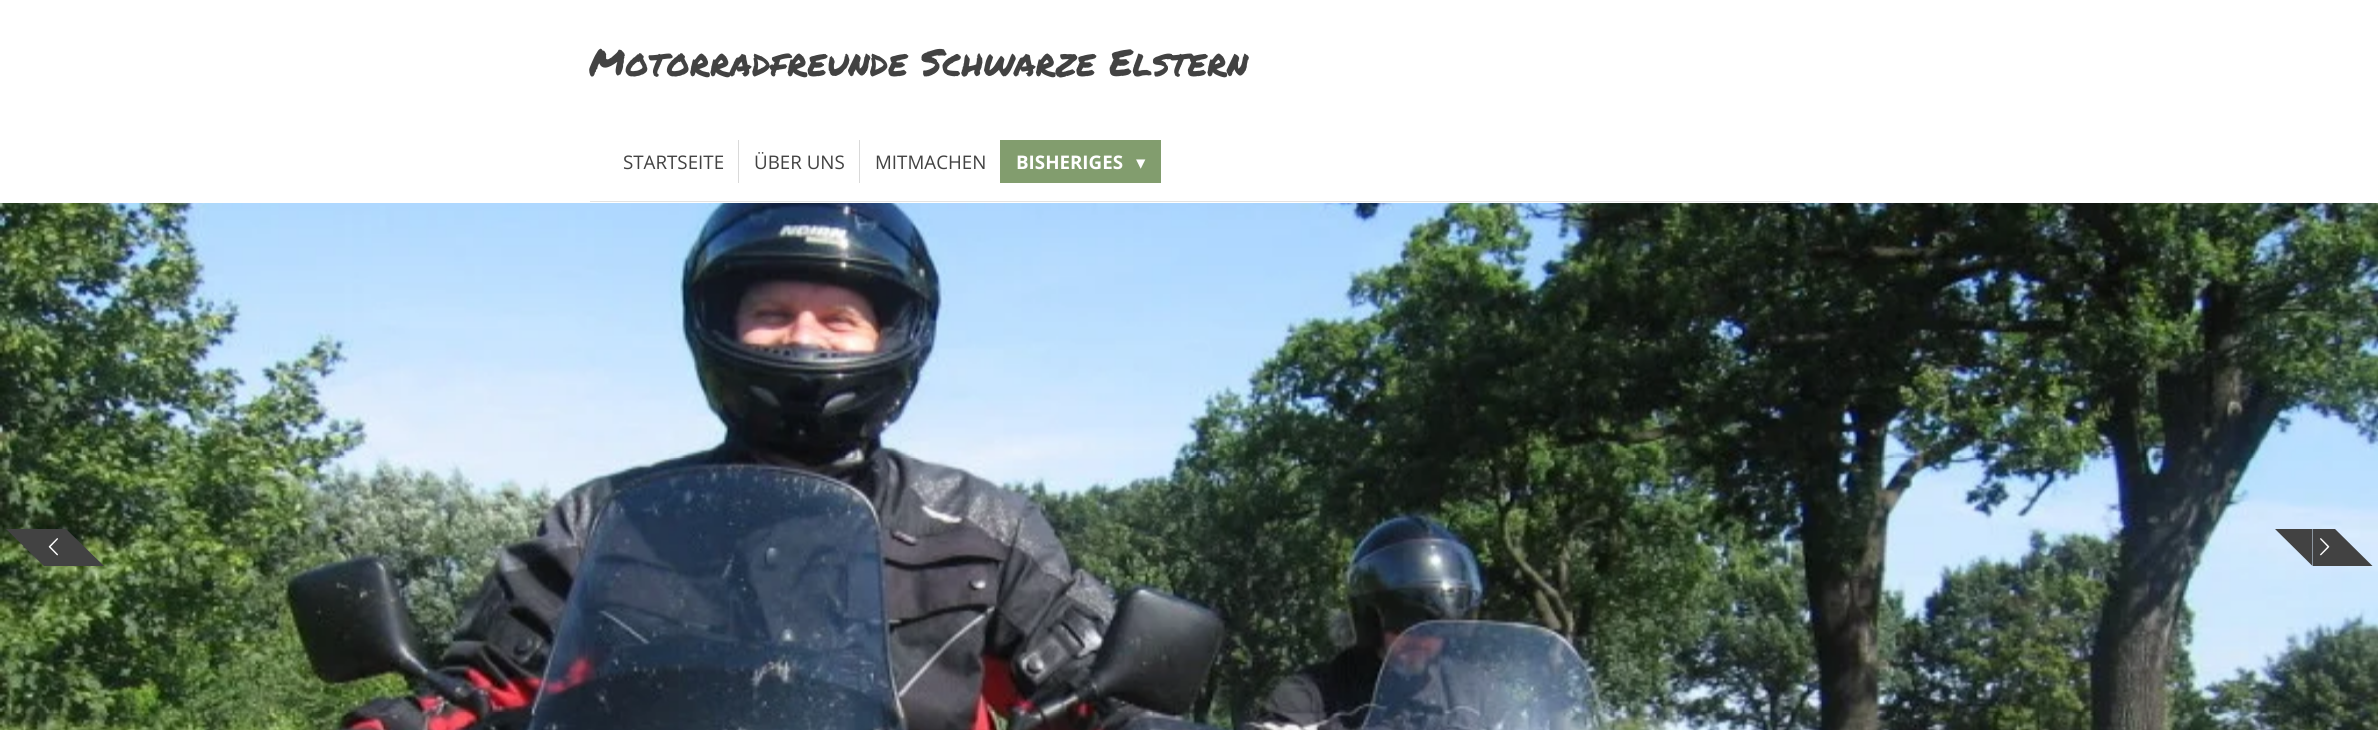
#include <cairo/cairo.h>
#include <math.h>
#include <stddef.h>


static void draw_image(cairo_t *cr, const char *path, double x, double y, double w, double h) {
  cairo_surface_t *image = cairo_image_surface_create_from_png(path);
  cairo_save(cr);
  cairo_set_source_surface(cr, image, x, y);
  cairo_rectangle(cr, x, y, w, h);
  cairo_fill(cr);
  cairo_restore(cr);
  cairo_surface_destroy(image);
}

static void draw(cairo_t *cr) {
  cairo_set_source_rgb(cr, 1, 1, 1);
  cairo_paint(cr);
  cairo_set_source_rgb(cr, 227 / 255.0, 227 / 255.0, 227 / 255.0);
  cairo_rectangle(cr, 590, 201, 1200, 1);
  cairo_fill(cr);
  cairo_set_source_rgb(cr, 217 / 255.0, 217 / 255.0, 217 / 255.0);
  cairo_rectangle(cr, 738, 140, 1, 43);
  cairo_fill(cr);
  cairo_rectangle(cr, 859, 140, 1, 43);
  cairo_fill(cr);
  cairo_set_source_rgb(cr, 130 / 255.0, 157 / 255.0, 110 / 255.0);
  cairo_rectangle(cr, 1000, 140, 161, 43);
  cairo_fill(cr);
  draw_image(cr, "images/1.png", 0, 203, 2378, 527);
  cairo_set_source_rgb(cr, 66 / 255.0, 66 / 255.0, 66 / 255.0);
  cairo_rectangle(cr, 44, 529, 22, 37);
  cairo_fill(cr);
  cairo_new_path(cr);
  cairo_move_to(cr, 44, 529);
  cairo_line_to(cr, 44, 566);
  cairo_line_to(cr, 6, 529);
  cairo_close_path(cr);
  cairo_fill(cr);
  draw_image(cr, "images/2.png", 48, 538, 10, 18);
  cairo_new_path(cr);
  cairo_move_to(cr, 66, 566);
  cairo_line_to(cr, 66, 529);
  cairo_line_to(cr, 104, 566);
  cairo_close_path(cr);
  cairo_fill(cr);
  cairo_rectangle(cr, 2313, 529, 22, 37);
  cairo_fill(cr);
  cairo_new_path(cr);
  cairo_move_to(cr, 2312.5, 529);
  cairo_line_to(cr, 2312.5, 566);
  cairo_line_to(cr, 2275, 529);
  cairo_close_path(cr);
  cairo_fill(cr);
  draw_image(cr, "images/3.png", 2320, 538, 10, 18);
  cairo_new_path(cr);
  cairo_move_to(cr, 2335, 566);
  cairo_line_to(cr, 2335, 529);
  cairo_line_to(cr, 2372.5, 566);
  cairo_close_path(cr);
  cairo_fill(cr);
  cairo_select_font_face(cr, "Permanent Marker", CAIRO_FONT_SLANT_NORMAL, CAIRO_FONT_WEIGHT_NORMAL);
  cairo_set_font_size(cr, 37.2);
  cairo_move_to(cr, 589, 76);
  cairo_show_text(cr, "Motorradfreunde Schwarze Elstern");
  cairo_select_font_face(cr, "Open Sans", CAIRO_FONT_SLANT_NORMAL, CAIRO_FONT_WEIGHT_NORMAL);
  cairo_set_font_size(cr, 18.75);
  cairo_move_to(cr, 623, 169);
  cairo_show_text(cr, "STARTSEITE");
  cairo_move_to(cr, 754, 169);
  cairo_show_text(cr, "ÜBER UNS");
  cairo_move_to(cr, 875, 169);
  cairo_show_text(cr, "MITMACHEN");
  cairo_select_font_face(cr, "Open Sans", CAIRO_FONT_SLANT_NORMAL, CAIRO_FONT_WEIGHT_BOLD);
  cairo_set_source_rgb(cr, 1, 1, 1);
  cairo_move_to(cr, 1016, 169);
  cairo_show_text(cr, "BISHERIGES");
  cairo_select_font_face(cr, "DejaVu Sans", CAIRO_FONT_SLANT_NORMAL, CAIRO_FONT_WEIGHT_NORMAL);
  cairo_move_to(cr, 1136, 169);
  cairo_show_text(cr, "▾");
}

int main(void) {
  cairo_surface_t *surface = cairo_image_surface_create(CAIRO_FORMAT_RGB24, 2378, 730);
  cairo_t *cr = cairo_create(surface);
  cairo_font_options_t *options = cairo_font_options_create();
  cairo_font_options_set_hint_metrics(options, CAIRO_HINT_METRICS_OFF);
  cairo_font_options_set_hint_style(options, CAIRO_HINT_STYLE_NONE);
  cairo_set_font_options(cr, options);
  cairo_set_miter_limit(cr, 4);
  draw(cr);
  cairo_surface_write_to_png(surface, "out.png");
  cairo_font_options_destroy(options);
  cairo_destroy(cr);
  cairo_surface_destroy(surface);
  return 0;
}
